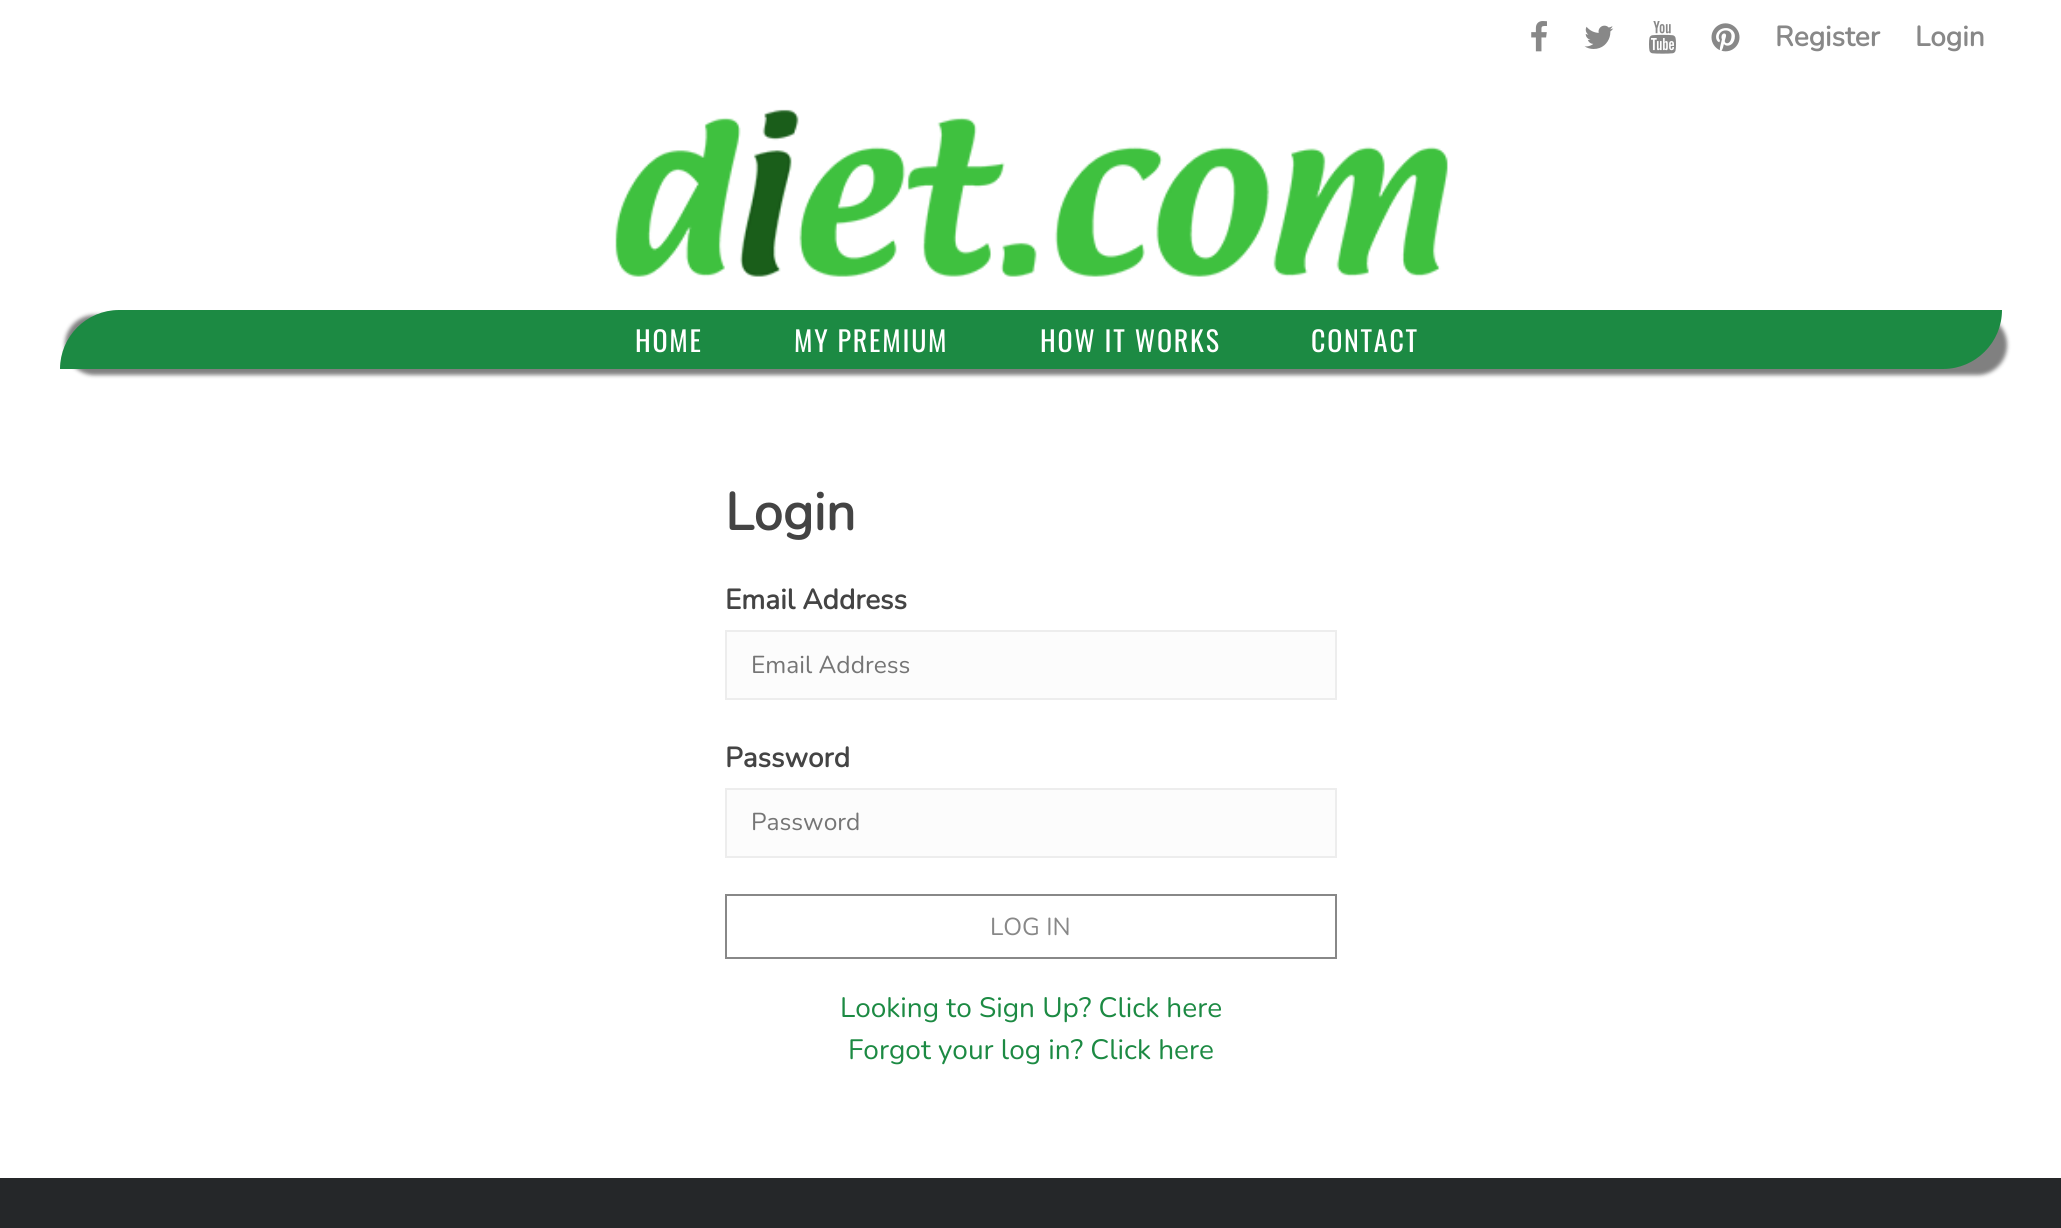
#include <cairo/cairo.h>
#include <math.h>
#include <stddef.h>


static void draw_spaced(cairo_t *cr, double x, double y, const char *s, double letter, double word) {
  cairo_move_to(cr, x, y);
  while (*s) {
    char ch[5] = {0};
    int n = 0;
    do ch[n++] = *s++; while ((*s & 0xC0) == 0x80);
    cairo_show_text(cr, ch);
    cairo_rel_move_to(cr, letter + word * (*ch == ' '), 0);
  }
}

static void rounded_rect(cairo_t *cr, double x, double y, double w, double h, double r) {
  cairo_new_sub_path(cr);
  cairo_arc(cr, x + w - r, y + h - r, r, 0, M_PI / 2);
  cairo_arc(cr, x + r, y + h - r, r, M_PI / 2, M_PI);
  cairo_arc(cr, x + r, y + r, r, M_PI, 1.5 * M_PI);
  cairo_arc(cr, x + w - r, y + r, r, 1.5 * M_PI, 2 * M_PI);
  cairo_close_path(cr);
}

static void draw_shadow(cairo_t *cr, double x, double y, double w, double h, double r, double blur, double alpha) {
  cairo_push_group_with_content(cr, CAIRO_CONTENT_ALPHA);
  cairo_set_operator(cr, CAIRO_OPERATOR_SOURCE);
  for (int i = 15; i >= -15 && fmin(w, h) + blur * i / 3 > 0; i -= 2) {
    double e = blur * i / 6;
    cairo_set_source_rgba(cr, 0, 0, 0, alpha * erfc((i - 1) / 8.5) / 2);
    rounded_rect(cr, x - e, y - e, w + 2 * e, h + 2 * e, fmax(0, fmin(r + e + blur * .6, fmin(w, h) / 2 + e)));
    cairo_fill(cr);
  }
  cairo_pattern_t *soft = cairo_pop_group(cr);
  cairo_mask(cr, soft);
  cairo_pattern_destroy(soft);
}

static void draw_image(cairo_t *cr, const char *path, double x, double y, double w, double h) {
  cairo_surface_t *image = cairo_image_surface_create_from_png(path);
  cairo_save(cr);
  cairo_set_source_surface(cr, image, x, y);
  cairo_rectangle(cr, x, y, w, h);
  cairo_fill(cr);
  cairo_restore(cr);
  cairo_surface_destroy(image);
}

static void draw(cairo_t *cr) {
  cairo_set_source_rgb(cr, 1, 1, 1);
  cairo_paint(cr);
  draw_image(cr, "images/1.png", 1531, 21, 16, 31);
  draw_image(cr, "images/2.png", 1584, 25, 30, 24);
  draw_image(cr, "images/3.png", 1649, 21, 27, 33);
  draw_image(cr, "images/4.png", 1711, 23, 29, 29);
  draw_image(cr, "images/5.png", 615, 109, 833, 168);
  cairo_set_source_rgb(cr, 128 / 255.0, 128 / 255.0, 128 / 255.0);
  draw_shadow(cr, 65, 315, 1942, 60, 60, 2, 1);
  cairo_set_source_rgb(cr, 28 / 255.0, 138 / 255.0, 67 / 255.0);
  cairo_new_path(cr);
  cairo_move_to(cr, 119, 310);
  cairo_line_to(cr, 2002, 310);
  cairo_curve_to(cr, 2002, 342.5, 1975.5, 369, 1943, 369);
  cairo_line_to(cr, 60, 369);
  cairo_curve_to(cr, 60, 336.5, 86.5, 310, 119, 310);
  cairo_close_path(cr);
  cairo_fill(cr);
  cairo_set_source_rgb(cr, 252 / 255.0, 252 / 255.0, 252 / 255.0);
  cairo_rectangle(cr, 726, 631, 610, 68);
  cairo_fill_preserve(cr);
  cairo_set_source_rgb(cr, 237 / 255.0, 237 / 255.0, 237 / 255.0);
  cairo_stroke(cr);
  cairo_set_source_rgb(cr, 252 / 255.0, 252 / 255.0, 252 / 255.0);
  cairo_rectangle(cr, 726, 789, 610, 68);
  cairo_fill_preserve(cr);
  cairo_set_source_rgb(cr, 237 / 255.0, 237 / 255.0, 237 / 255.0);
  cairo_stroke(cr);
  cairo_rectangle(cr, 726, 895, 610, 63);
  cairo_set_source_rgb(cr, 136 / 255.0, 136 / 255.0, 136 / 255.0);
  cairo_stroke(cr);
  cairo_set_source_rgb(cr, 37 / 255.0, 39 / 255.0, 41 / 255.0);
  cairo_rectangle(cr, 0, 1178, 2061, 50);
  cairo_fill(cr);
  cairo_select_font_face(cr, "Nunito", CAIRO_FONT_SLANT_NORMAL, CAIRO_FONT_WEIGHT_BOLD);
  cairo_set_font_size(cr, 28);
  cairo_set_source_rgb(cr, 136 / 255.0, 136 / 255.0, 136 / 255.0);
  cairo_move_to(cr, 1775, 46);
  cairo_show_text(cr, "Register");
  cairo_move_to(cr, 1915, 46);
  cairo_show_text(cr, "Login");
  cairo_select_font_face(cr, "Oswald", CAIRO_FONT_SLANT_NORMAL, CAIRO_FONT_WEIGHT_NORMAL);
  cairo_set_source_rgb(cr, 1, 1, 1);
  draw_spaced(cr, 635, 352, "HOME", 1.75, 0);
  draw_spaced(cr, 794, 352, "MY PREMIUM", 1.75, 0);
  draw_spaced(cr, 1040, 352, "HOW IT WORKS", 1.75, 0);
  draw_spaced(cr, 1311, 352, "CONTACT", 1.75, 0);
  cairo_select_font_face(cr, "Nunito", CAIRO_FONT_SLANT_NORMAL, CAIRO_FONT_WEIGHT_BOLD);
  cairo_set_font_size(cr, 52.5);
  cairo_set_source_rgb(cr, 68 / 255.0, 68 / 255.0, 68 / 255.0);
  cairo_move_to(cr, 725, 530);
  cairo_show_text(cr, "Login");
  cairo_set_font_size(cr, 28);
  cairo_move_to(cr, 725, 609);
  cairo_show_text(cr, "Email Address");
  cairo_select_font_face(cr, "Nunito ExtraLight", CAIRO_FONT_SLANT_NORMAL, CAIRO_FONT_WEIGHT_NORMAL);
  cairo_set_font_size(cr, 24.5);
  cairo_set_source_rgb(cr, 117 / 255.0, 117 / 255.0, 117 / 255.0);
  cairo_move_to(cr, 751, 673);
  cairo_show_text(cr, "Email Address");
  cairo_select_font_face(cr, "Nunito", CAIRO_FONT_SLANT_NORMAL, CAIRO_FONT_WEIGHT_BOLD);
  cairo_set_font_size(cr, 28);
  cairo_set_source_rgb(cr, 68 / 255.0, 68 / 255.0, 68 / 255.0);
  cairo_move_to(cr, 725, 767);
  cairo_show_text(cr, "Password");
  cairo_select_font_face(cr, "Nunito ExtraLight", CAIRO_FONT_SLANT_NORMAL, CAIRO_FONT_WEIGHT_NORMAL);
  cairo_set_font_size(cr, 24.5);
  cairo_set_source_rgb(cr, 117 / 255.0, 117 / 255.0, 117 / 255.0);
  cairo_move_to(cr, 751, 830);
  cairo_show_text(cr, "Password");
  cairo_set_source_rgb(cr, 136 / 255.0, 136 / 255.0, 136 / 255.0);
  cairo_move_to(cr, 990, 935);
  cairo_show_text(cr, "LOG IN");
  cairo_set_font_size(cr, 28);
  cairo_set_source_rgb(cr, 28 / 255.0, 138 / 255.0, 67 / 255.0);
  cairo_move_to(cr, 840, 1017);
  cairo_show_text(cr, "Looking to Sign Up? Click here");
  cairo_move_to(cr, 848, 1059);
  cairo_show_text(cr, "Forgot your log in? Click here");
}

int main(void) {
  cairo_surface_t *surface = cairo_image_surface_create(CAIRO_FORMAT_RGB24, 2061, 1228);
  cairo_t *cr = cairo_create(surface);
  cairo_font_options_t *options = cairo_font_options_create();
  cairo_font_options_set_hint_metrics(options, CAIRO_HINT_METRICS_OFF);
  cairo_font_options_set_hint_style(options, CAIRO_HINT_STYLE_NONE);
  cairo_set_font_options(cr, options);
  cairo_set_miter_limit(cr, 4);
  draw(cr);
  cairo_surface_write_to_png(surface, "out.png");
  cairo_font_options_destroy(options);
  cairo_destroy(cr);
  cairo_surface_destroy(surface);
  return 0;
}
